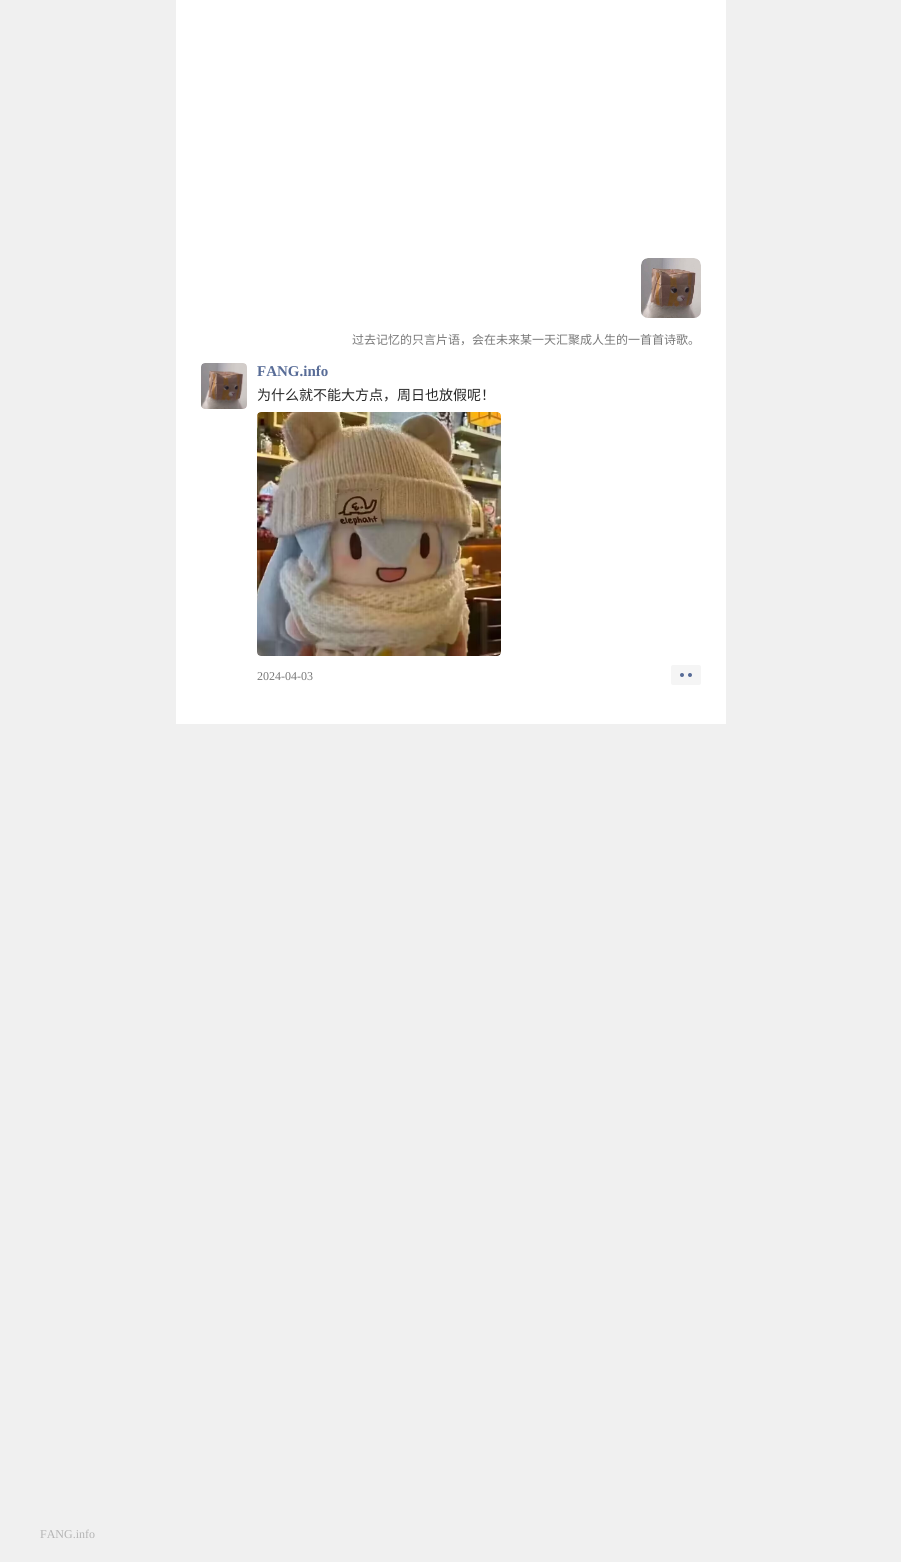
#include <cairo/cairo.h>
#include <math.h>
#include <stddef.h>


static void rounded_rect(cairo_t *cr, double x, double y, double w, double h, double r) {
  cairo_new_sub_path(cr);
  cairo_arc(cr, x + w - r, y + h - r, r, 0, M_PI / 2);
  cairo_arc(cr, x + r, y + h - r, r, M_PI / 2, M_PI);
  cairo_arc(cr, x + r, y + r, r, M_PI, 1.5 * M_PI);
  cairo_arc(cr, x + w - r, y + r, r, 1.5 * M_PI, 2 * M_PI);
  cairo_close_path(cr);
}

static void draw_image(cairo_t *cr, const char *path, double x, double y, double w, double h) {
  cairo_surface_t *image = cairo_image_surface_create_from_png(path);
  cairo_save(cr);
  cairo_set_source_surface(cr, image, x, y);
  cairo_rectangle(cr, x, y, w, h);
  cairo_fill(cr);
  cairo_restore(cr);
  cairo_surface_destroy(image);
}

static void draw(cairo_t *cr) {
  cairo_set_source_rgb(cr, 240 / 255.0, 240 / 255.0, 240 / 255.0);
  cairo_paint(cr);
  cairo_set_source_rgb(cr, 1, 1, 1);
  cairo_rectangle(cr, 176, 0, 550, 724);
  cairo_fill(cr);
  draw_image(cr, "images/1.png", 641, 258, 60, 60);
  draw_image(cr, "images/2.png", 201, 363, 46, 46);
  draw_image(cr, "images/3.png", 257, 412, 244, 244);
  cairo_set_source_rgb(cr, 245 / 255.0, 245 / 255.0, 245 / 255.0);
  rounded_rect(cr, 671, 665, 30, 20, 2);
  cairo_fill(cr);
  cairo_set_source_rgb(cr, 88 / 255.0, 108 / 255.0, 151 / 255.0);
  cairo_arc(cr, 682, 675, 2, 0, 2 * M_PI);
  cairo_fill(cr);
  cairo_arc(cr, 690, 675, 2, 0, 2 * M_PI);
  cairo_fill(cr);
  cairo_select_font_face(cr, "Noto Sans CJK SC", CAIRO_FONT_SLANT_NORMAL, CAIRO_FONT_WEIGHT_NORMAL);
  cairo_set_font_size(cr, 12);
  cairo_set_source_rgb(cr, 120 / 255.0, 120 / 255.0, 120 / 255.0);
  cairo_move_to(cr, 352, 344);
  cairo_show_text(cr, "过去记忆的只言片语，会在未来某一天汇聚成人生的一首首诗歌。");
  cairo_select_font_face(cr, "Liberation Serif", CAIRO_FONT_SLANT_NORMAL, CAIRO_FONT_WEIGHT_BOLD);
  cairo_set_font_size(cr, 15);
  cairo_set_source_rgb(cr, 88 / 255.0, 108 / 255.0, 151 / 255.0);
  cairo_move_to(cr, 257, 376);
  cairo_show_text(cr, "FANG.info");
  cairo_select_font_face(cr, "Noto Sans CJK SC", CAIRO_FONT_SLANT_NORMAL, CAIRO_FONT_WEIGHT_NORMAL);
  cairo_set_font_size(cr, 14);
  cairo_set_source_rgb(cr, 40 / 255.0, 40 / 255.0, 40 / 255.0);
  cairo_move_to(cr, 257, 400);
  cairo_show_text(cr, "为什么就不能大方点，周日也放假呢！");
  cairo_select_font_face(cr, "Liberation Serif", CAIRO_FONT_SLANT_NORMAL, CAIRO_FONT_WEIGHT_NORMAL);
  cairo_set_font_size(cr, 12);
  cairo_set_source_rgb(cr, 120 / 255.0, 120 / 255.0, 120 / 255.0);
  cairo_move_to(cr, 257, 680);
  cairo_show_text(cr, "2024-04-03");
  cairo_set_source_rgb(cr, 180 / 255.0, 180 / 255.0, 180 / 255.0);
  cairo_move_to(cr, 40, 1538);
  cairo_show_text(cr, "FANG.info");
}

int main(void) {
  cairo_surface_t *surface = cairo_image_surface_create(CAIRO_FORMAT_RGB24, 901, 1562);
  cairo_t *cr = cairo_create(surface);
  cairo_font_options_t *options = cairo_font_options_create();
  cairo_font_options_set_hint_metrics(options, CAIRO_HINT_METRICS_OFF);
  cairo_font_options_set_hint_style(options, CAIRO_HINT_STYLE_NONE);
  cairo_set_font_options(cr, options);
  cairo_set_miter_limit(cr, 4);
  draw(cr);
  cairo_surface_write_to_png(surface, "out.png");
  cairo_font_options_destroy(options);
  cairo_destroy(cr);
  cairo_surface_destroy(surface);
  return 0;
}
